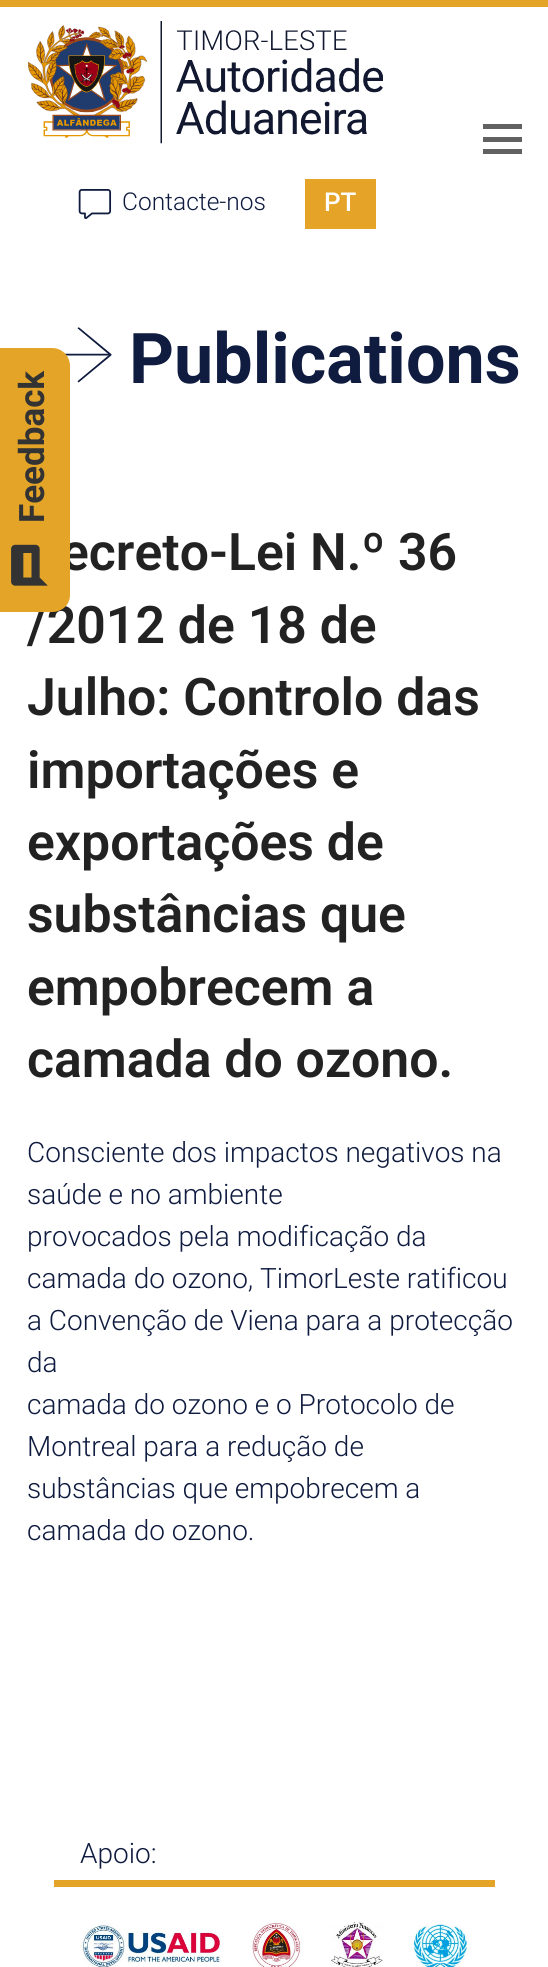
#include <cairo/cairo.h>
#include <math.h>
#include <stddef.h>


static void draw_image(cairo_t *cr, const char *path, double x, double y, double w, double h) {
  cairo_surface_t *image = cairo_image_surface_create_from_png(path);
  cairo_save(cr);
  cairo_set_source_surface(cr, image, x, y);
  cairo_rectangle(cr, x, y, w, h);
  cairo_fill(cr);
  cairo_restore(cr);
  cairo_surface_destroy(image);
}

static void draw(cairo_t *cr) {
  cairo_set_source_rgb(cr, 1, 1, 1);
  cairo_paint(cr);
  cairo_set_source_rgb(cr, 227 / 255.0, 164 / 255.0, 40 / 255.0);
  cairo_rectangle(cr, 0, 0, 548, 7);
  cairo_fill(cr);
  draw_image(cr, "images/1.png", 28, 21, 355, 123);
  cairo_set_source_rgb(cr, 97 / 255.0, 97 / 255.0, 97 / 255.0);
  cairo_rectangle(cr, 483, 137, 39, 5);
  cairo_fill(cr);
  cairo_rectangle(cr, 483, 124, 39, 5);
  cairo_fill(cr);
  cairo_rectangle(cr, 483, 149, 39, 5);
  cairo_fill(cr);
  draw_image(cr, "images/2.png", 78, 189, 34, 30);
  cairo_set_source_rgb(cr, 229 / 255.0, 163 / 255.0, 39 / 255.0);
  cairo_rectangle(cr, 305, 179, 71, 50);
  cairo_fill(cr);
  draw_image(cr, "images/3.png", 64, 327, 48, 56);
  cairo_set_source_rgb(cr, 227 / 255.0, 164 / 255.0, 40 / 255.0);
  cairo_rectangle(cr, 54, 1880, 441, 7);
  cairo_fill(cr);
  draw_image(cr, "images/4.png", 80, 1921, 389, 46);
  cairo_select_font_face(cr, "Roboto Light", CAIRO_FONT_SLANT_NORMAL, CAIRO_FONT_WEIGHT_NORMAL);
  cairo_set_font_size(cr, 24.5);
  cairo_set_source_rgb(cr, 15 / 255.0, 27 / 255.0, 63 / 255.0);
  cairo_move_to(cr, 122, 210);
  cairo_show_text(cr, "Contacte-nos");
  cairo_select_font_face(cr, "Roboto Medium", CAIRO_FONT_SLANT_NORMAL, CAIRO_FONT_WEIGHT_NORMAL);
  cairo_set_font_size(cr, 26);
  cairo_set_source_rgb(cr, 1, 1, 1);
  cairo_move_to(cr, 324, 211);
  cairo_show_text(cr, "PT");
  cairo_select_font_face(cr, "Roboto", CAIRO_FONT_SLANT_NORMAL, CAIRO_FONT_WEIGHT_BOLD);
  cairo_set_font_size(cr, 70);
  cairo_set_source_rgb(cr, 15 / 255.0, 27 / 255.0, 63 / 255.0);
  cairo_move_to(cr, 129, 383);
  cairo_show_text(cr, "Publications");
  cairo_select_font_face(cr, "Roboto SemiBold", CAIRO_FONT_SLANT_NORMAL, CAIRO_FONT_WEIGHT_NORMAL);
  cairo_set_font_size(cr, 51.75);
  cairo_set_source_rgb(cr, 34 / 255.0, 34 / 255.0, 34 / 255.0);
  cairo_move_to(cr, 61, 570);
  cairo_show_text(cr, "ecreto-Lei N.º 36");
  cairo_move_to(cr, 27, 643);
  cairo_show_text(cr, "/2012 de 18 de");
  cairo_move_to(cr, 27, 715);
  cairo_show_text(cr, "Julho: Controlo das");
  cairo_move_to(cr, 27, 788);
  cairo_show_text(cr, "importações e");
  cairo_move_to(cr, 27, 860);
  cairo_show_text(cr, "exportações de");
  cairo_move_to(cr, 27, 932);
  cairo_show_text(cr, "substâncias que");
  cairo_move_to(cr, 27, 1005);
  cairo_show_text(cr, "empobrecem a");
  cairo_move_to(cr, 27, 1077);
  cairo_show_text(cr, "camada do ozono.");
  cairo_select_font_face(cr, "Roboto Light", CAIRO_FONT_SLANT_NORMAL, CAIRO_FONT_WEIGHT_NORMAL);
  cairo_set_font_size(cr, 28);
  cairo_set_source_rgb(cr, 15 / 255.0, 27 / 255.0, 63 / 255.0);
  cairo_move_to(cr, 27, 1162);
  cairo_show_text(cr, "Consciente dos impactos negativos na");
  cairo_move_to(cr, 27, 1204);
  cairo_show_text(cr, "saúde e no ambiente");
  cairo_move_to(cr, 27, 1246);
  cairo_show_text(cr, "provocados pela modificação da");
  cairo_move_to(cr, 27, 1288);
  cairo_show_text(cr, "camada do ozono, TimorLeste ratificou");
  cairo_move_to(cr, 27, 1330);
  cairo_show_text(cr, "a Convenção de Viena para a protecção");
  cairo_move_to(cr, 27, 1372);
  cairo_show_text(cr, "da");
  cairo_move_to(cr, 27, 1414);
  cairo_show_text(cr, "camada do ozono e o Protocolo de");
  cairo_move_to(cr, 27, 1456);
  cairo_show_text(cr, "Montreal para a redução de");
  cairo_move_to(cr, 27, 1498);
  cairo_show_text(cr, "substâncias que empobrecem a");
  cairo_move_to(cr, 27, 1540);
  cairo_show_text(cr, "camada do ozono.");
  cairo_move_to(cr, 80, 1863);
  cairo_show_text(cr, "Apoio:");
  cairo_set_source_rgb(cr, 227 / 255.0, 164 / 255.0, 40 / 255.0);
  cairo_new_path(cr);
  cairo_move_to(cr, -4, 612);
  cairo_line_to(cr, -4, 348);
  cairo_line_to(cr, 52, 348);
  cairo_curve_to(cr, 62, 348, 70, 356, 70, 366);
  cairo_line_to(cr, 70, 595);
  cairo_curve_to(cr, 70, 605, 62, 612, 52, 612);
  cairo_close_path(cr);
  cairo_fill(cr);
  cairo_select_font_face(cr, "Roboto", CAIRO_FONT_SLANT_NORMAL, CAIRO_FONT_WEIGHT_BOLD);
  cairo_set_font_size(cr, 35);
  cairo_set_source_rgb(cr, 51 / 255.0, 51 / 255.0, 51 / 255.0);
  cairo_save(cr);
  cairo_translate(cr, 44, 523);
  cairo_rotate(cr, -90 * M_PI / 180);
  cairo_move_to(cr, 0, 0);
  cairo_show_text(cr, "Feedback");
  cairo_restore(cr);
  draw_image(cr, "images/5.png", 11, 544, 37, 42);
}

int main(void) {
  cairo_surface_t *surface = cairo_image_surface_create(CAIRO_FORMAT_RGB24, 548, 1967);
  cairo_t *cr = cairo_create(surface);
  cairo_font_options_t *options = cairo_font_options_create();
  cairo_font_options_set_hint_metrics(options, CAIRO_HINT_METRICS_OFF);
  cairo_font_options_set_hint_style(options, CAIRO_HINT_STYLE_NONE);
  cairo_set_font_options(cr, options);
  cairo_set_miter_limit(cr, 4);
  draw(cr);
  cairo_surface_write_to_png(surface, "out.png");
  cairo_font_options_destroy(options);
  cairo_destroy(cr);
  cairo_surface_destroy(surface);
  return 0;
}
